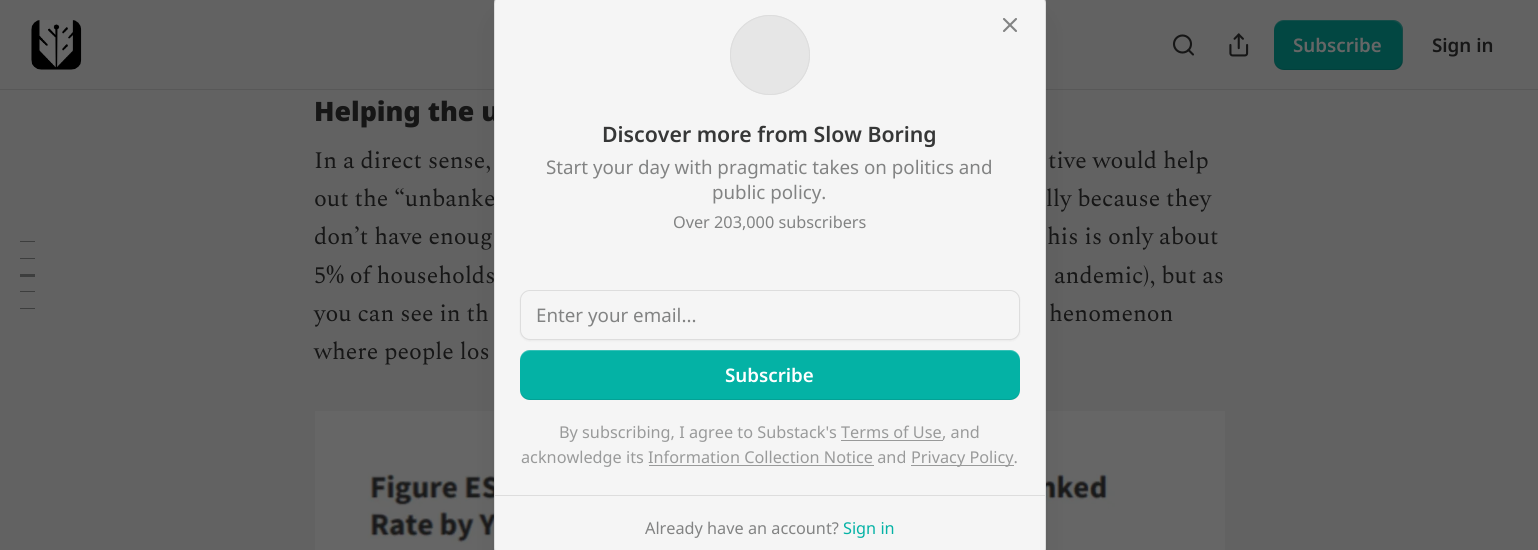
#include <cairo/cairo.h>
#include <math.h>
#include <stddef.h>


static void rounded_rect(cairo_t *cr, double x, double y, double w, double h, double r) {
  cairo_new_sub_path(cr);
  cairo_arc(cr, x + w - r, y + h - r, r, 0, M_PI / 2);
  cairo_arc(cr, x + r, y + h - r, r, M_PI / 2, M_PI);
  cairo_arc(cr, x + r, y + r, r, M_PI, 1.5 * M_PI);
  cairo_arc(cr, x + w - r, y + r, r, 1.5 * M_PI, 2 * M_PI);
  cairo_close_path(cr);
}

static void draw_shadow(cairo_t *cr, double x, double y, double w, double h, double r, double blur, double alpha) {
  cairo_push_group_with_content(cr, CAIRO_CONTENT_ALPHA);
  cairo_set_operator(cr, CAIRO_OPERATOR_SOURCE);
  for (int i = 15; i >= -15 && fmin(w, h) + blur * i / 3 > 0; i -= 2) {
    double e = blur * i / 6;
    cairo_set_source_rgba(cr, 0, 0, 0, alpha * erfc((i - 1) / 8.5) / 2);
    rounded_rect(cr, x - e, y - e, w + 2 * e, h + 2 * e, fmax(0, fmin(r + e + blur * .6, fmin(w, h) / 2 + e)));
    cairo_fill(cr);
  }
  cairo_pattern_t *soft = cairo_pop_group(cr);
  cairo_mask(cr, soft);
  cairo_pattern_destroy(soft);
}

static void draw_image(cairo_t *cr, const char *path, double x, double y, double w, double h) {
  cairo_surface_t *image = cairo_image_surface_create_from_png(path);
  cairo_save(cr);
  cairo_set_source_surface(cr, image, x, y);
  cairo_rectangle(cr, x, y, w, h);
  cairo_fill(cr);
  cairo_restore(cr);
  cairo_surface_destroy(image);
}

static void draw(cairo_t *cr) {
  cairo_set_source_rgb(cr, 98 / 255.0, 98 / 255.0, 98 / 255.0);
  cairo_paint(cr);
  cairo_set_source_rgb(cr, 88 / 255.0, 88 / 255.0, 88 / 255.0);
  cairo_rectangle(cr, 0, 89, 1538, 1);
  cairo_fill(cr);
  cairo_set_source_rgb(cr, 102 / 255.0, 102 / 255.0, 102 / 255.0);
  rounded_rect(cr, 31, 20, 50, 50, 10);
  cairo_fill(cr);
  draw_image(cr, "images/1.png", 31, 20, 51, 50);
  cairo_arc(cr, 1182.5, 44, 8.5, 0, 2 * M_PI);
  cairo_set_source_rgb(cr, 22 / 255.0, 22 / 255.0, 22 / 255.0);
  cairo_set_line_width(cr, 2.1);
  cairo_stroke(cr);
  cairo_new_path(cr);
  cairo_move_to(cr, 1193, 54.5);
  cairo_line_to(cr, 1188.5, 50);
  cairo_set_line_cap(cr, CAIRO_LINE_CAP_ROUND);
  cairo_set_line_join(cr, CAIRO_LINE_JOIN_ROUND);
  cairo_stroke(cr);
  draw_image(cr, "images/2.png", 1229, 33, 20, 24);
  cairo_set_source_rgb(cr, 2 / 255.0, 71 / 255.0, 66 / 255.0);
  rounded_rect(cr, 1274, 20, 129, 50, 10);
  cairo_fill(cr);
  cairo_set_source_rgba(cr, 0, 0, 0, 0.1);
  cairo_new_path(cr);
  cairo_move_to(cr, 1274, 59);
  cairo_line_to(cr, 1274, 60);
  cairo_curve_to(cr, 1274, 66, 1278, 70, 1284, 70);
  cairo_line_to(cr, 1393, 70);
  cairo_curve_to(cr, 1399, 70, 1403, 66, 1403, 60);
  cairo_line_to(cr, 1403, 30);
  cairo_curve_to(cr, 1403, 28, 1402, 25, 1401, 24);
  cairo_curve_to(cr, 1402, 25, 1402, 27, 1402, 29);
  cairo_line_to(cr, 1402, 59);
  cairo_curve_to(cr, 1402, 64, 1398, 69, 1392, 69);
  cairo_line_to(cr, 1284, 69);
  cairo_curve_to(cr, 1278, 69, 1274, 64, 1274, 59);
  cairo_close_path(cr);
  cairo_fill(cr);
  cairo_set_source_rgba(cr, 102 / 255.0, 102 / 255.0, 102 / 255.0, 0.2);
  cairo_new_path(cr);
  cairo_move_to(cr, 1284, 21);
  cairo_line_to(cr, 1392, 21);
  cairo_curve_to(cr, 1398, 21, 1402, 26, 1402, 31);
  cairo_line_to(cr, 1402, 61);
  cairo_curve_to(cr, 1402, 63, 1402, 65, 1401, 66);
  cairo_curve_to(cr, 1402, 65, 1403, 62, 1403, 60);
  cairo_line_to(cr, 1403, 30);
  cairo_curve_to(cr, 1403, 24, 1399, 20, 1393, 20);
  cairo_line_to(cr, 1284, 20);
  cairo_curve_to(cr, 1278, 20, 1274, 24, 1274, 30);
  cairo_line_to(cr, 1274, 31);
  cairo_curve_to(cr, 1274, 26, 1278, 21, 1284, 21);
  cairo_close_path(cr);
  cairo_fill(cr);
  cairo_set_source_rgb(cr, 61 / 255.0, 62 / 255.0, 62 / 255.0);
  cairo_rectangle(cr, 20, 241, 15, 1);
  cairo_fill(cr);
  cairo_rectangle(cr, 20, 258, 15, 1);
  cairo_fill(cr);
  cairo_rectangle(cr, 20, 274, 15, 3);
  cairo_fill(cr);
  cairo_rectangle(cr, 20, 291, 15, 1);
  cairo_fill(cr);
  cairo_rectangle(cr, 20, 308, 15, 1);
  cairo_fill(cr);
  draw_image(cr, "images/3.png", 315, 411, 910, 139);
  cairo_set_source_rgb(cr, 0, 0, 0);
  draw_shadow(cr, 500, 20, 540, 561, 9, 15.5, 0.1);
  cairo_select_font_face(cr, "Noto Sans SemiBold", CAIRO_FONT_SLANT_NORMAL, CAIRO_FONT_WEIGHT_NORMAL);
  cairo_set_font_size(cr, 18.75);
  cairo_set_source_rgb(cr, 102 / 255.0, 102 / 255.0, 102 / 255.0);
  cairo_move_to(cr, 1293, 52);
  cairo_show_text(cr, "Subscribe");
  cairo_set_source_rgb(cr, 22 / 255.0, 22 / 255.0, 22 / 255.0);
  cairo_move_to(cr, 1432, 52);
  cairo_show_text(cr, "Sign in");
  cairo_select_font_face(cr, "Noto Sans Black", CAIRO_FONT_SLANT_NORMAL, CAIRO_FONT_WEIGHT_NORMAL);
  cairo_set_font_size(cr, 26.75);
  cairo_move_to(cr, 314, 121);
  cairo_show_text(cr, "Helping the u");
  cairo_select_font_face(cr, "Spectral", CAIRO_FONT_SLANT_NORMAL, CAIRO_FONT_WEIGHT_NORMAL);
  cairo_set_font_size(cr, 23.75);
  cairo_move_to(cr, 314, 168);
  cairo_show_text(cr, "In a direct sense,");
  cairo_move_to(cr, 1048, 168);
  cairo_show_text(cr, "tive would help");
  cairo_move_to(cr, 314, 206);
  cairo_show_text(cr, "out the “unbanke");
  cairo_move_to(cr, 1046, 206);
  cairo_show_text(cr, "lly because they");
  cairo_move_to(cr, 314, 244);
  cairo_show_text(cr, "don’t have enoug");
  cairo_move_to(cr, 1047, 244);
  cairo_show_text(cr, "his is only about");
  cairo_move_to(cr, 314, 283);
  cairo_show_text(cr, "5% of households");
  cairo_move_to(cr, 1054, 283);
  cairo_show_text(cr, "andemic), but as");
  cairo_move_to(cr, 314, 321);
  cairo_show_text(cr, "you can see in th");
  cairo_move_to(cr, 1049, 321);
  cairo_show_text(cr, "henomenon");
  cairo_move_to(cr, 314, 359);
  cairo_show_text(cr, "where people los");
  cairo_set_source_rgb(cr, 245 / 255.0, 245 / 255.0, 245 / 255.0);
  rounded_rect(cr, 494.5, -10.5, 551, 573, 14.5);
  cairo_fill_preserve(cr);
  cairo_set_source_rgb(cr, 221 / 255.0, 221 / 255.0, 221 / 255.0);
  cairo_set_line_width(cr, 1);
  cairo_set_line_cap(cr, CAIRO_LINE_CAP_BUTT);
  cairo_set_line_join(cr, CAIRO_LINE_JOIN_MITER);
  cairo_stroke(cr);
  cairo_arc(cr, 770, 55, 39.5, 0, 2 * M_PI);
  cairo_stroke(cr);
  cairo_set_source_rgb(cr, 230 / 255.0, 230 / 255.0, 230 / 255.0);
  cairo_arc(cr, 770, 55, 39.5, 0, 2 * M_PI);
  cairo_fill_preserve(cr);
  cairo_set_source_rgb(cr, 221 / 255.0, 221 / 255.0, 221 / 255.0);
  cairo_stroke(cr);
  cairo_new_path(cr);
  cairo_move_to(cr, 1016, 19);
  cairo_line_to(cr, 1004, 31);
  cairo_move_to(cr, 1004, 19);
  cairo_line_to(cr, 1016, 31);
  cairo_set_source_rgb(cr, 130 / 255.0, 131 / 255.0, 131 / 255.0);
  cairo_set_line_width(cr, 2.1);
  cairo_set_line_cap(cr, CAIRO_LINE_CAP_ROUND);
  cairo_set_line_join(cr, CAIRO_LINE_JOIN_ROUND);
  cairo_stroke(cr);
  cairo_select_font_face(cr, "Noto Sans SemiBold", CAIRO_FONT_SLANT_NORMAL, CAIRO_FONT_WEIGHT_NORMAL);
  cairo_set_font_size(cr, 21.25);
  cairo_set_source_rgb(cr, 54 / 255.0, 55 / 255.0, 55 / 255.0);
  cairo_move_to(cr, 602, 142);
  cairo_show_text(cr, "Discover more from Slow Boring");
  cairo_select_font_face(cr, "Noto Sans", CAIRO_FONT_SLANT_NORMAL, CAIRO_FONT_WEIGHT_NORMAL);
  cairo_set_font_size(cr, 18.75);
  cairo_set_source_rgb(cr, 130 / 255.0, 131 / 255.0, 131 / 255.0);
  cairo_move_to(cr, 546, 174);
  cairo_show_text(cr, "Start your day with pragmatic takes on politics and");
  cairo_move_to(cr, 712, 199);
  cairo_show_text(cr, "public policy.");
  cairo_set_font_size(cr, 16.25);
  cairo_move_to(cr, 673, 228);
  cairo_show_text(cr, "Over 203,000 subscribers");
  cairo_set_source_rgb(cr, 0, 0, 0);
  draw_shadow(cr, 520, 291, 500, 50, 10, 1, 0.05);
  cairo_set_source_rgb(cr, 245 / 255.0, 245 / 255.0, 245 / 255.0);
  rounded_rect(cr, 520.5, 290.5, 499, 49, 9.5);
  cairo_fill_preserve(cr);
  cairo_set_source_rgb(cr, 221 / 255.0, 221 / 255.0, 221 / 255.0);
  cairo_set_line_width(cr, 1);
  cairo_set_line_cap(cr, CAIRO_LINE_CAP_BUTT);
  cairo_set_line_join(cr, CAIRO_LINE_JOIN_MITER);
  cairo_stroke(cr);
  cairo_set_font_size(cr, 18.75);
  cairo_set_source_rgb(cr, 130 / 255.0, 131 / 255.0, 131 / 255.0);
  cairo_move_to(cr, 536, 322);
  cairo_show_text(cr, "Enter your email...");
  cairo_set_source_rgb(cr, 4 / 255.0, 178 / 255.0, 165 / 255.0);
  rounded_rect(cr, 520, 350, 500, 50, 10);
  cairo_fill(cr);
  cairo_set_source_rgba(cr, 0, 0, 0, 0.1);
  cairo_new_path(cr);
  cairo_move_to(cr, 520, 389);
  cairo_line_to(cr, 520, 390);
  cairo_curve_to(cr, 520, 396, 524, 400, 530, 400);
  cairo_line_to(cr, 1010, 400);
  cairo_curve_to(cr, 1016, 400, 1020, 396, 1020, 390);
  cairo_line_to(cr, 1020, 389);
  cairo_curve_to(cr, 1020, 394, 1016, 399, 1010, 399);
  cairo_line_to(cr, 530, 399);
  cairo_curve_to(cr, 524, 399, 520, 394, 520, 389);
  cairo_close_path(cr);
  cairo_fill(cr);
  cairo_set_source_rgba(cr, 1, 1, 1, 0.2);
  cairo_new_path(cr);
  cairo_move_to(cr, 530, 351);
  cairo_line_to(cr, 1010, 351);
  cairo_curve_to(cr, 1016, 351, 1020, 356, 1020, 361);
  cairo_line_to(cr, 1020, 360);
  cairo_curve_to(cr, 1020, 354, 1016, 350, 1010, 350);
  cairo_line_to(cr, 530, 350);
  cairo_curve_to(cr, 524, 350, 520, 354, 520, 360);
  cairo_line_to(cr, 520, 361);
  cairo_curve_to(cr, 520, 356, 524, 351, 530, 351);
  cairo_close_path(cr);
  cairo_fill(cr);
  cairo_select_font_face(cr, "Noto Sans SemiBold", CAIRO_FONT_SLANT_NORMAL, CAIRO_FONT_WEIGHT_NORMAL);
  cairo_set_source_rgb(cr, 1, 1, 1);
  cairo_move_to(cr, 725, 382);
  cairo_show_text(cr, "Subscribe");
  cairo_select_font_face(cr, "Noto Sans", CAIRO_FONT_SLANT_NORMAL, CAIRO_FONT_WEIGHT_NORMAL);
  cairo_set_font_size(cr, 16.25);
  cairo_set_source_rgb(cr, 153 / 255.0, 154 / 255.0, 154 / 255.0);
  cairo_move_to(cr, 559, 438);
  cairo_show_text(cr, "By subscribing, I agree to Substack's Terms of Use");
  cairo_rectangle(cr, 841, 440, 102, 1);
  cairo_fill(cr);
  cairo_move_to(cr, 942, 438);
  cairo_show_text(cr, ", and");
  cairo_move_to(cr, 521, 463);
  cairo_show_text(cr, "acknowledge its Information Collection Notice and");
  cairo_rectangle(cr, 911, 465, 103, 1);
  cairo_fill(cr);
  cairo_move_to(cr, 911, 463);
  cairo_show_text(cr, "Privacy Policy.");
  cairo_rectangle(cr, 649, 465, 225, 1);
  cairo_fill(cr);
  cairo_set_source_rgb(cr, 221 / 255.0, 221 / 255.0, 221 / 255.0);
  cairo_rectangle(cr, 495, 495, 550, 1);
  cairo_fill(cr);
  cairo_set_source_rgb(cr, 130 / 255.0, 131 / 255.0, 131 / 255.0);
  cairo_move_to(cr, 645, 534);
  cairo_show_text(cr, "Already have an account?");
  cairo_set_source_rgb(cr, 4 / 255.0, 178 / 255.0, 165 / 255.0);
  cairo_move_to(cr, 843, 534);
  cairo_show_text(cr, "Sign in");
}

int main(void) {
  cairo_surface_t *surface = cairo_image_surface_create(CAIRO_FORMAT_RGB24, 1538, 550);
  cairo_t *cr = cairo_create(surface);
  cairo_font_options_t *options = cairo_font_options_create();
  cairo_font_options_set_hint_metrics(options, CAIRO_HINT_METRICS_OFF);
  cairo_font_options_set_hint_style(options, CAIRO_HINT_STYLE_NONE);
  cairo_set_font_options(cr, options);
  cairo_set_miter_limit(cr, 4);
  draw(cr);
  cairo_surface_write_to_png(surface, "out.png");
  cairo_font_options_destroy(options);
  cairo_destroy(cr);
  cairo_surface_destroy(surface);
  return 0;
}
